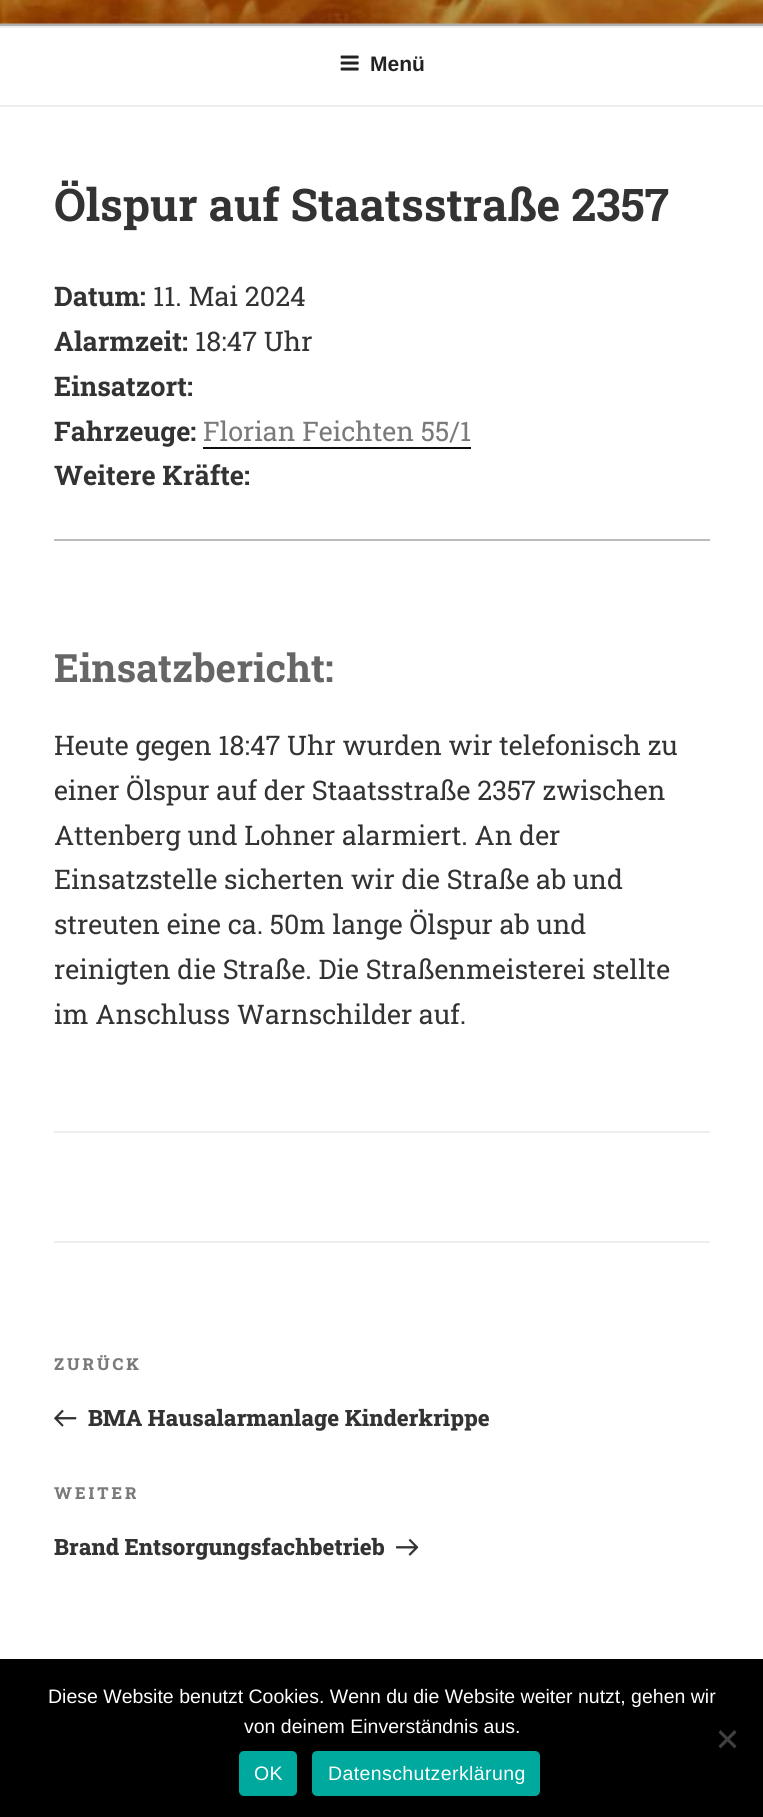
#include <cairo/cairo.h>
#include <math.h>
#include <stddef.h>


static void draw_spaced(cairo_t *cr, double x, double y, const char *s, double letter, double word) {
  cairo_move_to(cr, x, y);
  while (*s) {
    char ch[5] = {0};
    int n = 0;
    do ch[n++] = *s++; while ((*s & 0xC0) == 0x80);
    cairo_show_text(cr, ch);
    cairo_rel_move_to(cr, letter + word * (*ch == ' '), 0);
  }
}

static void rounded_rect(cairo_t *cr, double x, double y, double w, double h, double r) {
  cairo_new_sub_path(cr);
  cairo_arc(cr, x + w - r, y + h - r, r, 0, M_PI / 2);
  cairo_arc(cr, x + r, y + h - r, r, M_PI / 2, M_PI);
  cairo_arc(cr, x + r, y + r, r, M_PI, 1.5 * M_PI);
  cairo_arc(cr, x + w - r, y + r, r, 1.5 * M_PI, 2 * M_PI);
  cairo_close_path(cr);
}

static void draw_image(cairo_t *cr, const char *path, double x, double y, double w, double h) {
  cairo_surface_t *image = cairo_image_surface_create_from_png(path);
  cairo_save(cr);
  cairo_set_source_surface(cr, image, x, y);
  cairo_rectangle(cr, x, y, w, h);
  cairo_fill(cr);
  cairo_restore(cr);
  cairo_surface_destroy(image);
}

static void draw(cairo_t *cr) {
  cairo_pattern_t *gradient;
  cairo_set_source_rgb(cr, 1, 1, 1);
  cairo_paint(cr);
  cairo_set_source_rgb(cr, 250 / 255.0, 250 / 255.0, 250 / 255.0);
  cairo_rectangle(cr, 0, 23, 763, 3);
  cairo_fill(cr);
  draw_image(cr, "images/1.png", 0, 0, 763, 24);
  gradient = cairo_pattern_create_linear(382, -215, 382, 26);
  cairo_pattern_add_color_stop_rgba(gradient, 0, 0, 0, 0, 0);
  cairo_pattern_add_color_stop_rgba(gradient, 0.75, 0, 0, 0, 0.3);
  cairo_pattern_add_color_stop_rgba(gradient, 1, 0, 0, 0, 0.3);
  cairo_set_source(cr, gradient);
  cairo_pattern_destroy(gradient);
  cairo_rectangle(cr, 0, 0, 763, 26);
  cairo_fill(cr);
  cairo_set_source_rgb(cr, 238 / 255.0, 238 / 255.0, 238 / 255.0);
  cairo_rectangle(cr, 0, 26, 763, 2);
  cairo_fill(cr);
  cairo_rectangle(cr, 0, 105, 763, 2);
  cairo_fill(cr);
  draw_image(cr, "images/2.png", 340, 55, 19, 16);
  cairo_set_source_rgb(cr, 15 / 255.0, 15 / 255.0, 15 / 255.0);
  cairo_rectangle(cr, 203, 447, 268, 2);
  cairo_fill(cr);
  cairo_set_source_rgb(cr, 187 / 255.0, 187 / 255.0, 187 / 255.0);
  cairo_rectangle(cr, 54, 539, 656, 2);
  cairo_fill(cr);
  cairo_set_source_rgb(cr, 238 / 255.0, 238 / 255.0, 238 / 255.0);
  cairo_rectangle(cr, 54, 1131, 656, 2);
  cairo_fill(cr);
  cairo_rectangle(cr, 54, 1241, 656, 2);
  cairo_fill(cr);
  draw_image(cr, "images/3.png", 54, 1409, 23, 18);
  draw_image(cr, "images/4.png", 396, 1538, 23, 18);
  cairo_set_source_rgb(cr, 0, 0, 0);
  cairo_rectangle(cr, 0, 1659, 763, 158);
  cairo_fill(cr);
  cairo_set_source_rgb(cr, 64 / 255.0, 64 / 255.0, 64 / 255.0);
  cairo_new_path(cr);
  cairo_move_to(cr, 734.5, 1730);
  cairo_line_to(cr, 736.5, 1732.5);
  cairo_line_to(cr, 720.5, 1748.5);
  cairo_line_to(cr, 718.5, 1746);
  cairo_close_path(cr);
  cairo_fill(cr);
  cairo_new_path(cr);
  cairo_move_to(cr, 718.5, 1732.5);
  cairo_line_to(cr, 720.5, 1730);
  cairo_line_to(cr, 736.5, 1746);
  cairo_line_to(cr, 734.5, 1748.5);
  cairo_close_path(cr);
  cairo_fill(cr);
  cairo_set_source_rgb(cr, 0, 169 / 255.0, 157 / 255.0);
  rounded_rect(cr, 239, 1751, 58, 45, 5);
  cairo_fill(cr);
  rounded_rect(cr, 312, 1751, 228, 45, 5);
  cairo_fill(cr);
  cairo_select_font_face(cr, "Liberation Sans", CAIRO_FONT_SLANT_NORMAL, CAIRO_FONT_WEIGHT_BOLD);
  cairo_set_font_size(cr, 21);
  cairo_set_source_rgb(cr, 34 / 255.0, 34 / 255.0, 34 / 255.0);
  cairo_move_to(cr, 370, 71);
  cairo_show_text(cr, "Menü");
  cairo_select_font_face(cr, "Roboto Slab", CAIRO_FONT_SLANT_NORMAL, CAIRO_FONT_WEIGHT_BOLD);
  cairo_set_font_size(cr, 45);
  cairo_set_source_rgb(cr, 51 / 255.0, 51 / 255.0, 51 / 255.0);
  cairo_move_to(cr, 54, 221);
  cairo_show_text(cr, "Ölspur auf Staatsstraße 2357");
  cairo_set_font_size(cr, 27);
  cairo_move_to(cr, 54, 306);
  cairo_show_text(cr, "Datum:");
  cairo_select_font_face(cr, "Roboto Slab", CAIRO_FONT_SLANT_NORMAL, CAIRO_FONT_WEIGHT_NORMAL);
  cairo_move_to(cr, 153, 306);
  cairo_show_text(cr, "11. Mai 2024");
  cairo_select_font_face(cr, "Roboto Slab", CAIRO_FONT_SLANT_NORMAL, CAIRO_FONT_WEIGHT_BOLD);
  cairo_move_to(cr, 54, 351);
  cairo_show_text(cr, "Alarmzeit:");
  cairo_select_font_face(cr, "Roboto Slab", CAIRO_FONT_SLANT_NORMAL, CAIRO_FONT_WEIGHT_NORMAL);
  cairo_move_to(cr, 195, 351);
  cairo_show_text(cr, "18:47 Uhr");
  cairo_select_font_face(cr, "Roboto Slab", CAIRO_FONT_SLANT_NORMAL, CAIRO_FONT_WEIGHT_BOLD);
  cairo_move_to(cr, 54, 396);
  cairo_show_text(cr, "Einsatzort:");
  cairo_move_to(cr, 54, 441);
  cairo_show_text(cr, "Fahrzeuge:");
  cairo_select_font_face(cr, "Roboto Slab", CAIRO_FONT_SLANT_NORMAL, CAIRO_FONT_WEIGHT_NORMAL);
  cairo_set_source_rgb(cr, 122 / 255.0, 122 / 255.0, 122 / 255.0);
  cairo_move_to(cr, 203, 441);
  cairo_show_text(cr, "Florian Feichten 55/1");
  cairo_select_font_face(cr, "Roboto Slab", CAIRO_FONT_SLANT_NORMAL, CAIRO_FONT_WEIGHT_BOLD);
  cairo_set_source_rgb(cr, 51 / 255.0, 51 / 255.0, 51 / 255.0);
  cairo_move_to(cr, 54, 485);
  cairo_show_text(cr, "Weitere Kräfte:");
  cairo_set_font_size(cr, 39);
  cairo_set_source_rgb(cr, 102 / 255.0, 102 / 255.0, 102 / 255.0);
  cairo_move_to(cr, 54, 682);
  cairo_show_text(cr, "Einsatzbericht:");
  cairo_select_font_face(cr, "Roboto Slab", CAIRO_FONT_SLANT_NORMAL, CAIRO_FONT_WEIGHT_NORMAL);
  cairo_set_font_size(cr, 27);
  cairo_set_source_rgb(cr, 51 / 255.0, 51 / 255.0, 51 / 255.0);
  cairo_move_to(cr, 54, 755);
  cairo_show_text(cr, "Heute gegen 18:47 Uhr wurden wir telefonisch zu");
  cairo_move_to(cr, 54, 800);
  cairo_show_text(cr, "einer Ölspur auf der Staatsstraße 2357 zwischen");
  cairo_move_to(cr, 54, 845);
  cairo_show_text(cr, "Attenberg und Lohner alarmiert. An der");
  cairo_move_to(cr, 54, 889);
  cairo_show_text(cr, "Einsatzstelle sicherten wir die Straße ab und");
  cairo_move_to(cr, 54, 934);
  cairo_show_text(cr, "streuten eine ca. 50m lange Ölspur ab und");
  cairo_move_to(cr, 54, 979);
  cairo_show_text(cr, "reinigten die Straße. Die Straßenmeisterei stellte");
  cairo_move_to(cr, 54, 1024);
  cairo_show_text(cr, "im Anschluss Warnschilder auf.");
  cairo_select_font_face(cr, "Roboto Slab ExtraBold", CAIRO_FONT_SLANT_NORMAL, CAIRO_FONT_WEIGHT_NORMAL);
  cairo_set_font_size(cr, 16.5);
  cairo_set_source_rgb(cr, 122 / 255.0, 122 / 255.0, 122 / 255.0);
  draw_spaced(cr, 54, 1370, "ZURÜCK", 3, 0);
  cairo_set_font_size(cr, 22.5);
  cairo_set_source_rgb(cr, 51 / 255.0, 51 / 255.0, 51 / 255.0);
  cairo_move_to(cr, 88, 1426);
  cairo_show_text(cr, "BMA Hausalarmanlage Kinderkrippe");
  cairo_set_font_size(cr, 16.5);
  cairo_set_source_rgb(cr, 122 / 255.0, 122 / 255.0, 122 / 255.0);
  draw_spaced(cr, 54, 1499, "WEITER", 3, 0);
  cairo_set_font_size(cr, 22.5);
  cairo_set_source_rgb(cr, 51 / 255.0, 51 / 255.0, 51 / 255.0);
  cairo_move_to(cr, 54, 1555);
  cairo_show_text(cr, "Brand Entsorgungsfachbetrieb");
  cairo_select_font_face(cr, "Liberation Sans", CAIRO_FONT_SLANT_NORMAL, CAIRO_FONT_WEIGHT_NORMAL);
  cairo_set_font_size(cr, 19.5);
  cairo_set_source_rgb(cr, 1, 1, 1);
  cairo_move_to(cr, 48, 1703);
  cairo_show_text(cr, "Diese Website benutzt Cookies. Wenn du die Website weiter nutzt, gehen wir");
  cairo_move_to(cr, 244, 1733);
  cairo_show_text(cr, "von deinem Einverständnis aus.");
  draw_spaced(cr, 254, 1780, "OK", 0.4, 0);
  draw_spaced(cr, 328, 1780, "Datenschutzerklärung", 0.4, 0);
}

int main(void) {
  cairo_surface_t *surface = cairo_image_surface_create(CAIRO_FORMAT_RGB24, 763, 1817);
  cairo_t *cr = cairo_create(surface);
  cairo_font_options_t *options = cairo_font_options_create();
  cairo_font_options_set_hint_metrics(options, CAIRO_HINT_METRICS_OFF);
  cairo_font_options_set_hint_style(options, CAIRO_HINT_STYLE_NONE);
  cairo_set_font_options(cr, options);
  cairo_set_miter_limit(cr, 4);
  draw(cr);
  cairo_surface_write_to_png(surface, "out.png");
  cairo_font_options_destroy(options);
  cairo_destroy(cr);
  cairo_surface_destroy(surface);
  return 0;
}
